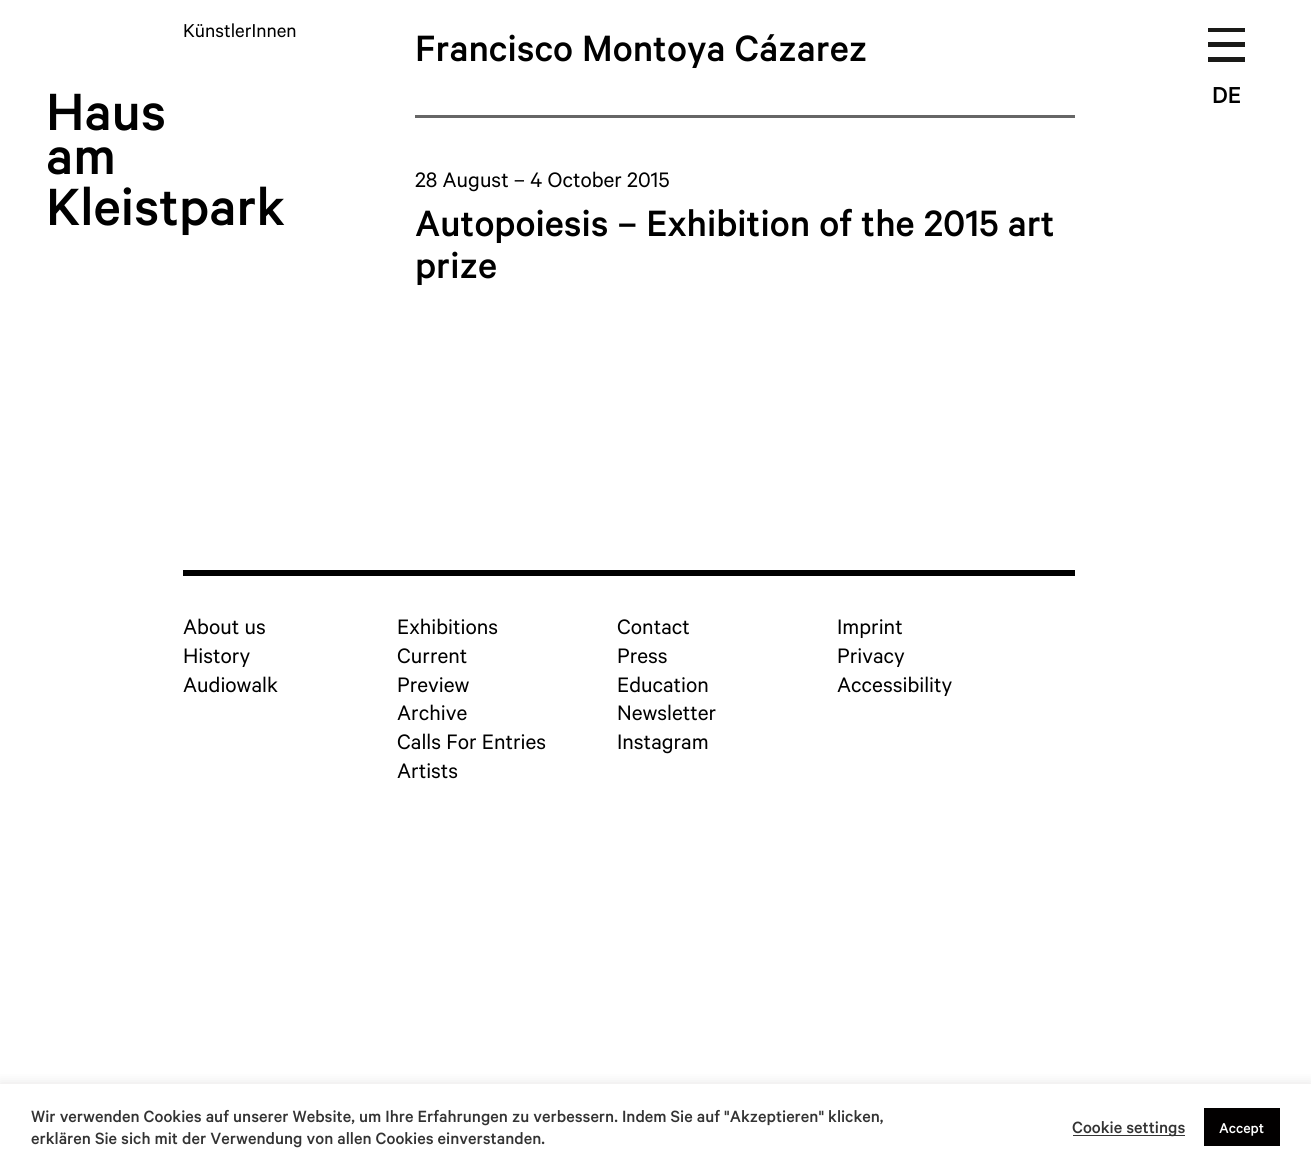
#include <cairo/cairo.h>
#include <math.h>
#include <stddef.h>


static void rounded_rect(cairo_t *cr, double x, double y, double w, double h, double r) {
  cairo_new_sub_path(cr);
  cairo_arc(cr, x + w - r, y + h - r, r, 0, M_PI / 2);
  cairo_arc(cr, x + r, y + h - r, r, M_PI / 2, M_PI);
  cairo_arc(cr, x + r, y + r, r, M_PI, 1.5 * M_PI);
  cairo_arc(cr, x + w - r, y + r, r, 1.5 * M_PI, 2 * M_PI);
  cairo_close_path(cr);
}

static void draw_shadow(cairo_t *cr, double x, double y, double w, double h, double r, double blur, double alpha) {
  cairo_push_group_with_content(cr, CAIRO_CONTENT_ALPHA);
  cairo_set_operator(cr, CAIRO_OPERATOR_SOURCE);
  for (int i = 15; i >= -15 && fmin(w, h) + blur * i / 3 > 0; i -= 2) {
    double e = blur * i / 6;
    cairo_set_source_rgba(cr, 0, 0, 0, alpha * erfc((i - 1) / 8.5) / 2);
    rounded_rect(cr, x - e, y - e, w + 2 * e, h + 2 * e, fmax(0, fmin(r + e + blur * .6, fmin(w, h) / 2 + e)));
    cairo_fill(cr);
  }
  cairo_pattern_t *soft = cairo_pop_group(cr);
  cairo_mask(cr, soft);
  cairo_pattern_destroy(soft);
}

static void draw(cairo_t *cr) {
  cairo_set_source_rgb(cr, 1, 1, 1);
  cairo_paint(cr);
  cairo_set_source_rgb(cr, 102 / 255.0, 102 / 255.0, 102 / 255.0);
  cairo_rectangle(cr, 415, 115, 660, 3);
  cairo_fill(cr);
  cairo_set_source_rgb(cr, 0, 0, 0);
  cairo_rectangle(cr, 183, 570, 892, 6);
  cairo_fill(cr);
  cairo_set_source_rgb(cr, 26 / 255.0, 26 / 255.0, 24 / 255.0);
  cairo_rectangle(cr, 1208, 28, 37, 4);
  cairo_fill(cr);
  cairo_rectangle(cr, 1208, 42, 37, 5);
  cairo_fill(cr);
  cairo_rectangle(cr, 1208, 57, 37, 5);
  cairo_fill(cr);
  cairo_save(cr);
  cairo_rectangle(cr, 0, 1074, 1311, 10);
  cairo_clip(cr);
  cairo_set_source_rgb(cr, 172 / 255.0, 171 / 255.0, 171 / 255.0);
  draw_shadow(cr, 0, 1083, 1311, 86, 0, 6, 0.3);
  cairo_restore(cr);
  cairo_set_source_rgb(cr, 51 / 255.0, 51 / 255.0, 51 / 255.0);
  cairo_rectangle(cr, 1073, 1135, 112, 1);
  cairo_fill(cr);
  cairo_set_source_rgb(cr, 2 / 255.0, 0, 0);
  cairo_rectangle(cr, 1204, 1108, 76, 38);
  cairo_fill(cr);
  cairo_select_font_face(cr, "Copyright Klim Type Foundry", CAIRO_FONT_SLANT_NORMAL, CAIRO_FONT_WEIGHT_NORMAL);
  cairo_set_font_size(cr, 21);
  cairo_set_source_rgb(cr, 0, 0, 0);
  cairo_move_to(cr, 183, 37);
  cairo_show_text(cr, "KünstlerInnen");
  cairo_select_font_face(cr, "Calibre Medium", CAIRO_FONT_SLANT_NORMAL, CAIRO_FONT_WEIGHT_NORMAL);
  cairo_set_font_size(cr, 41.25);
  cairo_move_to(cr, 415, 61);
  cairo_show_text(cr, "Francisco Montoya Cázarez");
  cairo_select_font_face(cr, "Copyright Klim Type Foundry", CAIRO_FONT_SLANT_NORMAL, CAIRO_FONT_WEIGHT_NORMAL);
  cairo_set_font_size(cr, 23.6);
  cairo_move_to(cr, 415, 187);
  cairo_show_text(cr, "28 August – 4 October 2015");
  cairo_select_font_face(cr, "Calibre Medium", CAIRO_FONT_SLANT_NORMAL, CAIRO_FONT_WEIGHT_NORMAL);
  cairo_set_font_size(cr, 41.25);
  cairo_move_to(cr, 415, 236);
  cairo_show_text(cr, "Autopoiesis – Exhibition of the 2015 art");
  cairo_move_to(cr, 415, 278);
  cairo_show_text(cr, "prize");
  cairo_select_font_face(cr, "Copyright Klim Type Foundry", CAIRO_FONT_SLANT_NORMAL, CAIRO_FONT_WEIGHT_NORMAL);
  cairo_set_font_size(cr, 23.6);
  cairo_move_to(cr, 183, 634);
  cairo_show_text(cr, "About us");
  cairo_move_to(cr, 183, 663);
  cairo_show_text(cr, "History");
  cairo_move_to(cr, 183, 692);
  cairo_show_text(cr, "Audiowalk");
  cairo_move_to(cr, 397, 634);
  cairo_show_text(cr, "Exhibitions");
  cairo_move_to(cr, 397, 663);
  cairo_show_text(cr, "Current");
  cairo_move_to(cr, 397, 692);
  cairo_show_text(cr, "Preview");
  cairo_move_to(cr, 397, 720);
  cairo_show_text(cr, "Archive");
  cairo_move_to(cr, 397, 749);
  cairo_show_text(cr, "Calls For Entries");
  cairo_move_to(cr, 397, 778);
  cairo_show_text(cr, "Artists");
  cairo_move_to(cr, 617, 634);
  cairo_show_text(cr, "Contact");
  cairo_move_to(cr, 617, 663);
  cairo_show_text(cr, "Press");
  cairo_move_to(cr, 617, 692);
  cairo_show_text(cr, "Education");
  cairo_move_to(cr, 617, 720);
  cairo_show_text(cr, "Newsletter");
  cairo_move_to(cr, 617, 749);
  cairo_show_text(cr, "Instagram");
  cairo_move_to(cr, 837, 634);
  cairo_show_text(cr, "Imprint");
  cairo_move_to(cr, 837, 663);
  cairo_show_text(cr, "Privacy");
  cairo_move_to(cr, 837, 692);
  cairo_show_text(cr, "Accessibility");
  cairo_select_font_face(cr, "Calibre Medium", CAIRO_FONT_SLANT_NORMAL, CAIRO_FONT_WEIGHT_NORMAL);
  cairo_set_font_size(cr, 59);
  cairo_move_to(cr, 46, 130);
  cairo_show_text(cr, "Haus");
  cairo_move_to(cr, 46, 174);
  cairo_show_text(cr, "am");
  cairo_move_to(cr, 46, 225);
  cairo_show_text(cr, "Kleistpark");
  cairo_set_font_size(cr, 26);
  cairo_move_to(cr, 1212, 103);
  cairo_show_text(cr, "DE");
  cairo_set_font_size(cr, 18.35);
  cairo_set_source_rgb(cr, 51 / 255.0, 51 / 255.0, 51 / 255.0);
  cairo_move_to(cr, 31, 1122);
  cairo_show_text(cr, "Wir verwenden Cookies auf unserer Website, um Ihre Erfahrungen zu verbessern. Indem Sie auf \"Akzeptieren\" klicken,");
  cairo_move_to(cr, 31, 1144);
  cairo_show_text(cr, "erklären Sie sich mit der Verwendung von allen Cookies einverstanden.");
  cairo_move_to(cr, 1072, 1133);
  cairo_show_text(cr, "Cookie settings");
  cairo_set_font_size(cr, 16);
  cairo_set_source_rgb(cr, 1, 1, 1);
  cairo_move_to(cr, 1219, 1133);
  cairo_show_text(cr, "Accept");
}

int main(void) {
  cairo_surface_t *surface = cairo_image_surface_create(CAIRO_FORMAT_RGB24, 1311, 1169);
  cairo_t *cr = cairo_create(surface);
  cairo_font_options_t *options = cairo_font_options_create();
  cairo_font_options_set_hint_metrics(options, CAIRO_HINT_METRICS_OFF);
  cairo_font_options_set_hint_style(options, CAIRO_HINT_STYLE_NONE);
  cairo_set_font_options(cr, options);
  cairo_set_miter_limit(cr, 4);
  draw(cr);
  cairo_surface_write_to_png(surface, "out.png");
  cairo_font_options_destroy(options);
  cairo_destroy(cr);
  cairo_surface_destroy(surface);
  return 0;
}
